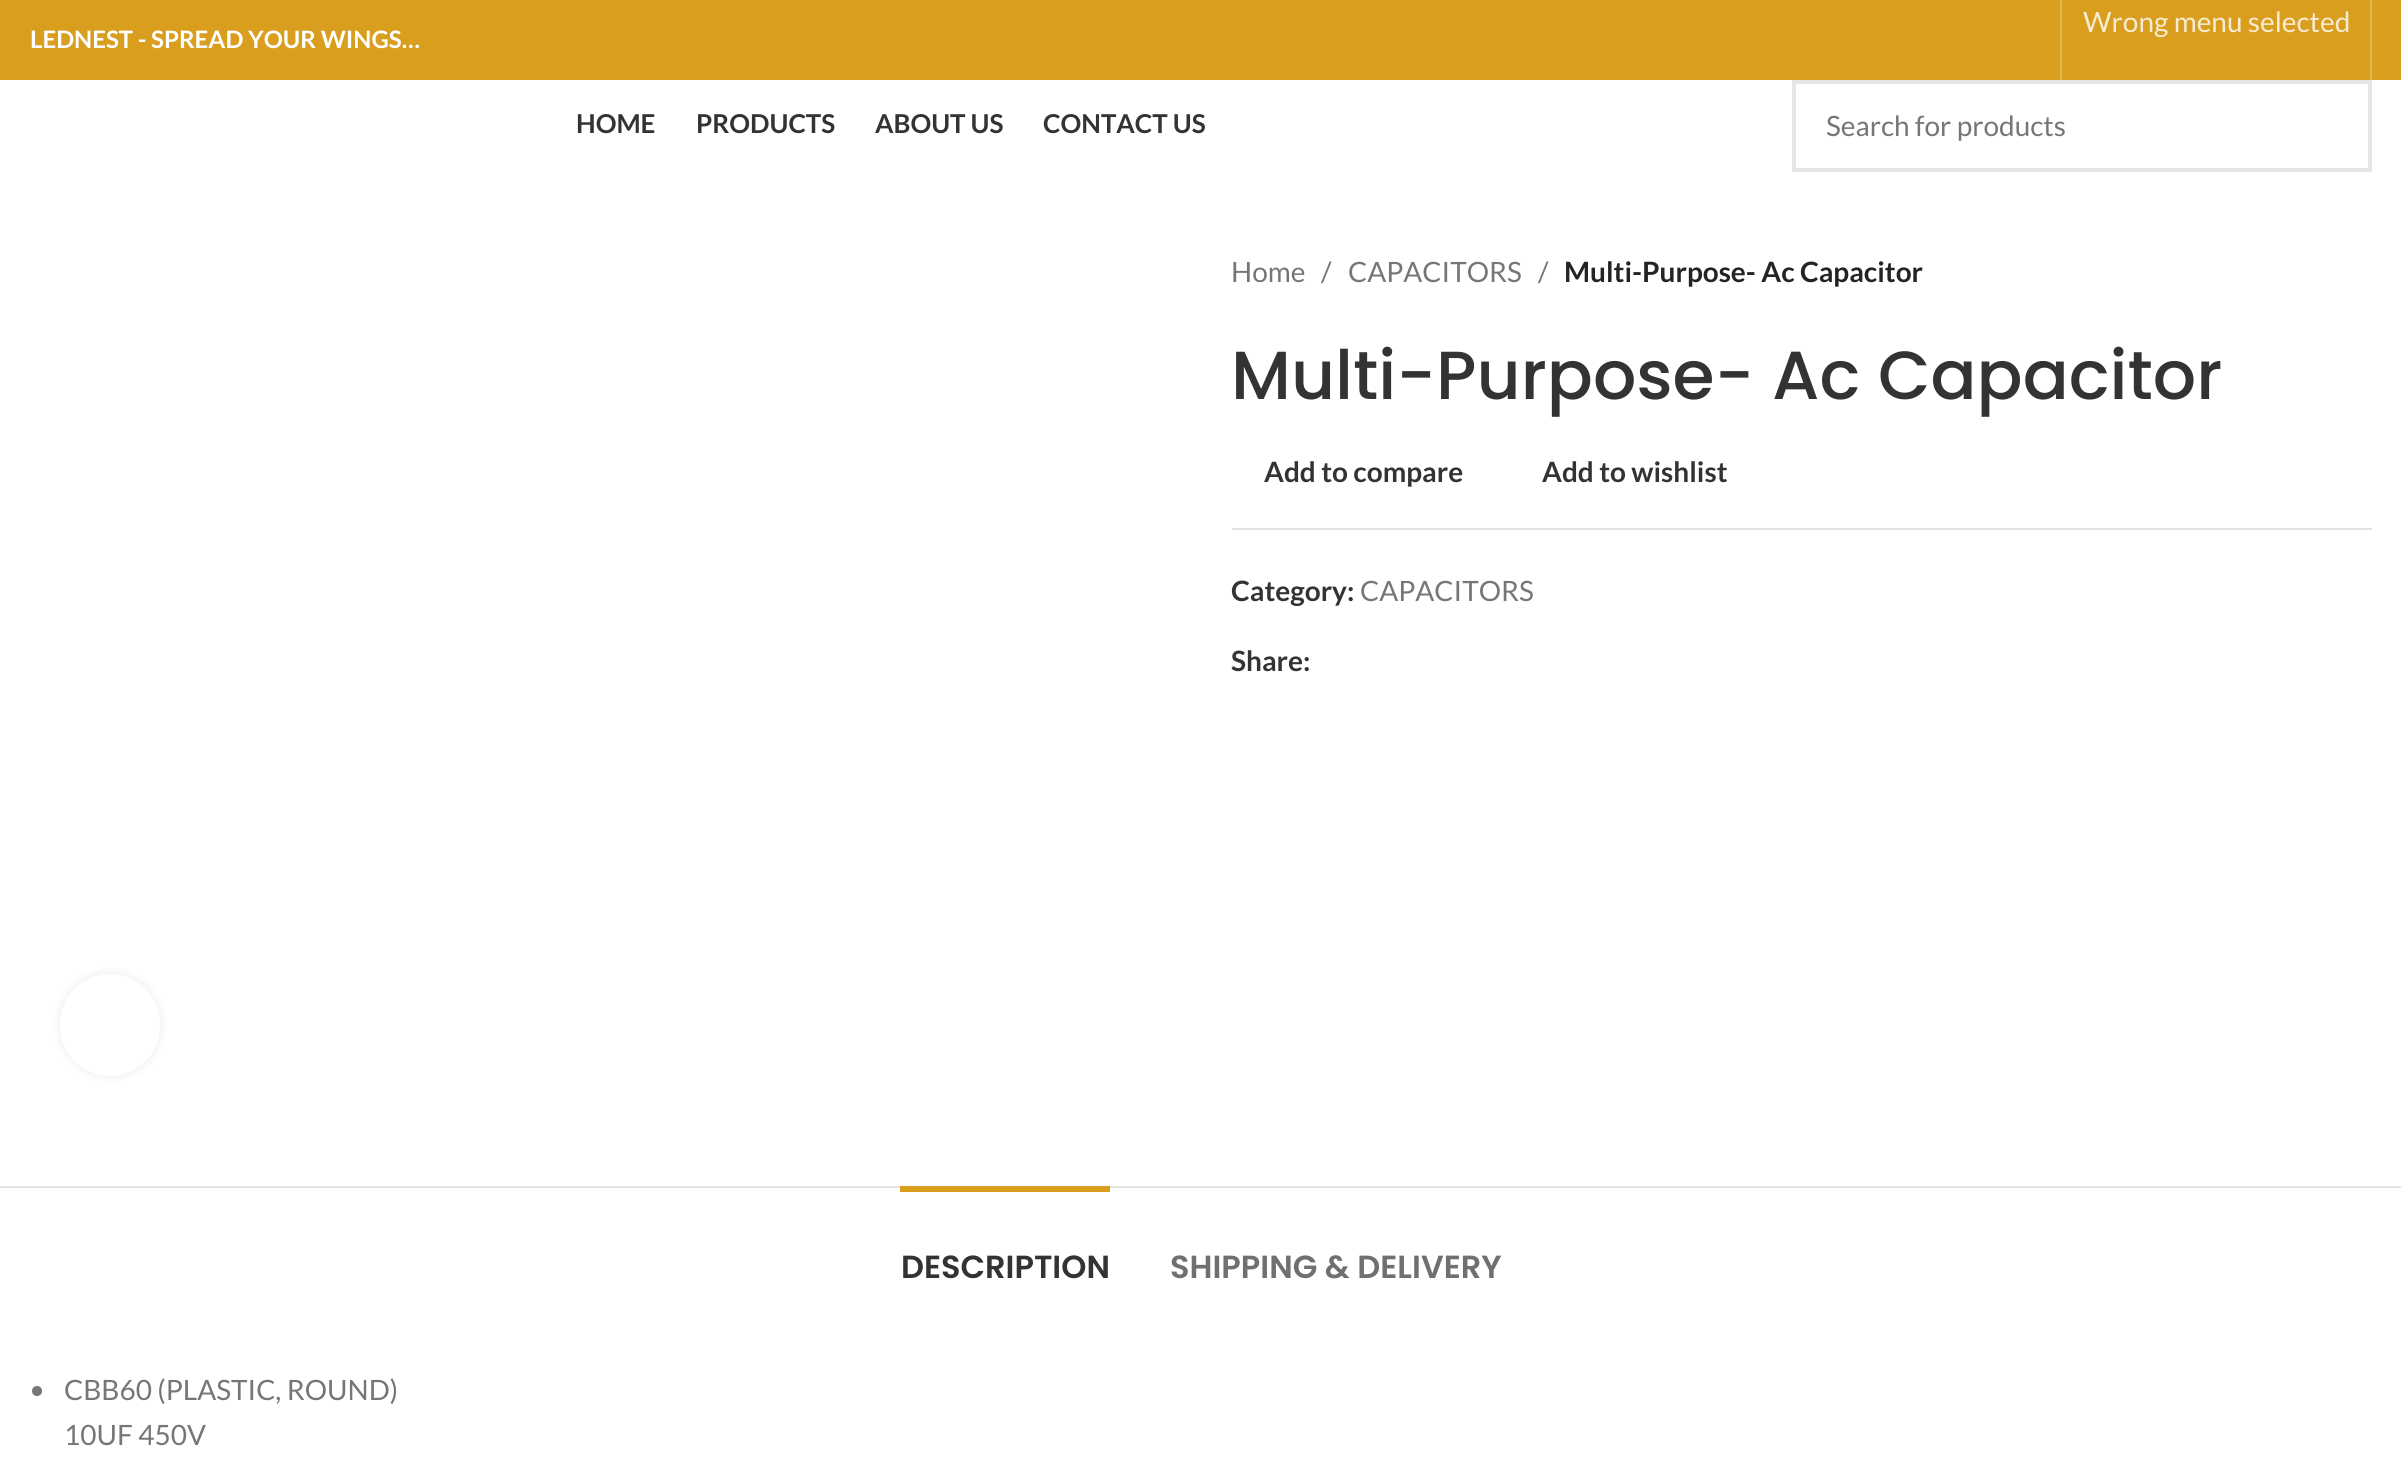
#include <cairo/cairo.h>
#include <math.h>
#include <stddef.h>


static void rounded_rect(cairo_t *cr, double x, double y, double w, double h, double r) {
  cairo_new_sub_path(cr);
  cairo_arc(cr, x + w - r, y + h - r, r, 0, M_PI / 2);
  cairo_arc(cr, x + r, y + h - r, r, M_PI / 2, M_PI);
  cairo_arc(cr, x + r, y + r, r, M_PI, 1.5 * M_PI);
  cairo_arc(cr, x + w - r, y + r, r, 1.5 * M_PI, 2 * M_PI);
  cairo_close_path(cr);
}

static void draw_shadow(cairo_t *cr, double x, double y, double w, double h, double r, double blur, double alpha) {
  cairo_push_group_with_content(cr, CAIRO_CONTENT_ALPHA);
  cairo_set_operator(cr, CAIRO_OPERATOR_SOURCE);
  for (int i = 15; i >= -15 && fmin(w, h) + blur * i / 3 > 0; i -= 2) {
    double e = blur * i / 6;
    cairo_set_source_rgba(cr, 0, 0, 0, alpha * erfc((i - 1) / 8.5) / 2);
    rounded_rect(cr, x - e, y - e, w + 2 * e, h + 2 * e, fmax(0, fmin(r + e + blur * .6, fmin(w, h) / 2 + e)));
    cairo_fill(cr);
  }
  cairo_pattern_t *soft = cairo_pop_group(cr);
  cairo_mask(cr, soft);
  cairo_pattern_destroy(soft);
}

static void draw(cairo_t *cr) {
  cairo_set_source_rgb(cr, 1, 1, 1);
  cairo_paint(cr);
  cairo_set_source_rgb(cr, 217 / 255.0, 158 / 255.0, 30 / 255.0);
  cairo_rectangle(cr, 0, 0, 2401, 80);
  cairo_fill(cr);
  cairo_set_source_rgb(cr, 227 / 255.0, 182 / 255.0, 86 / 255.0);
  cairo_rectangle(cr, 2060, 0, 2, 80);
  cairo_fill(cr);
  cairo_rectangle(cr, 2370, 0, 2, 80);
  cairo_fill(cr);
  cairo_rectangle(cr, 1794, 82, 576, 88);
  cairo_set_source_rgb(cr, 230 / 255.0, 230 / 255.0, 230 / 255.0);
  cairo_set_line_width(cr, 4);
  cairo_stroke(cr);
  cairo_set_source_rgb(cr, 228 / 255.0, 228 / 255.0, 228 / 255.0);
  cairo_rectangle(cr, 1232, 528, 1140, 2);
  cairo_fill(cr);
  cairo_set_source_rgb(cr, 0, 0, 0);
  draw_shadow(cr, 60, 974, 100, 102, 50, 5, 0.08);
  cairo_set_source_rgb(cr, 1, 1, 1);
  rounded_rect(cr, 60, 974, 100, 102, 50);
  cairo_fill(cr);
  cairo_set_source_rgb(cr, 228 / 255.0, 228 / 255.0, 228 / 255.0);
  cairo_rectangle(cr, 0, 1186, 2401, 2);
  cairo_fill(cr);
  cairo_set_source_rgb(cr, 217 / 255.0, 158 / 255.0, 30 / 255.0);
  cairo_rectangle(cr, 900, 1186, 210, 6);
  cairo_fill(cr);
  cairo_set_source_rgb(cr, 119 / 255.0, 119 / 255.0, 119 / 255.0);
  cairo_arc(cr, 37, 1391, 5, 0, 2 * M_PI);
  cairo_fill(cr);
  cairo_select_font_face(cr, "Lato", CAIRO_FONT_SLANT_NORMAL, CAIRO_FONT_WEIGHT_BOLD);
  cairo_set_font_size(cr, 24);
  cairo_set_source_rgb(cr, 1, 1, 1);
  cairo_move_to(cr, 30, 48);
  cairo_show_text(cr, "LEDNEST - SPREAD YOUR WINGS…");
  cairo_select_font_face(cr, "Lato", CAIRO_FONT_SLANT_NORMAL, CAIRO_FONT_WEIGHT_NORMAL);
  cairo_set_font_size(cr, 28);
  cairo_set_source_rgb(cr, 247 / 255.0, 236 / 255.0, 210 / 255.0);
  cairo_move_to(cr, 2083, 32);
  cairo_show_text(cr, "Wrong menu selected");
  cairo_select_font_face(cr, "Lato", CAIRO_FONT_SLANT_NORMAL, CAIRO_FONT_WEIGHT_BOLD);
  cairo_set_font_size(cr, 26);
  cairo_set_source_rgb(cr, 51 / 255.0, 51 / 255.0, 51 / 255.0);
  cairo_move_to(cr, 576, 133);
  cairo_show_text(cr, "HOME");
  cairo_move_to(cr, 696, 133);
  cairo_show_text(cr, "PRODUCTS");
  cairo_move_to(cr, 875, 133);
  cairo_show_text(cr, "ABOUT US");
  cairo_move_to(cr, 1043, 133);
  cairo_show_text(cr, "CONTACT US");
  cairo_select_font_face(cr, "Lato", CAIRO_FONT_SLANT_NORMAL, CAIRO_FONT_WEIGHT_NORMAL);
  cairo_set_font_size(cr, 28);
  cairo_set_source_rgb(cr, 118 / 255.0, 118 / 255.0, 118 / 255.0);
  cairo_move_to(cr, 1826, 136);
  cairo_show_text(cr, "Search for products");
  cairo_move_to(cr, 1231, 282);
  cairo_show_text(cr, "Home");
  cairo_move_to(cr, 1321, 282);
  cairo_show_text(cr, "/");
  cairo_move_to(cr, 1348, 282);
  cairo_show_text(cr, "CAPACITORS");
  cairo_move_to(cr, 1538, 282);
  cairo_show_text(cr, "/");
  cairo_select_font_face(cr, "Lato", CAIRO_FONT_SLANT_NORMAL, CAIRO_FONT_WEIGHT_BOLD);
  cairo_set_source_rgb(cr, 36 / 255.0, 36 / 255.0, 36 / 255.0);
  cairo_move_to(cr, 1564, 282);
  cairo_show_text(cr, "Multi-Purpose- Ac Capacitor");
  cairo_select_font_face(cr, "Poppins Medium", CAIRO_FONT_SLANT_NORMAL, CAIRO_FONT_WEIGHT_NORMAL);
  cairo_set_font_size(cr, 68);
  cairo_set_source_rgb(cr, 51 / 255.0, 51 / 255.0, 51 / 255.0);
  cairo_move_to(cr, 1231, 399);
  cairo_show_text(cr, "Multi-Purpose- Ac Capacitor");
  cairo_select_font_face(cr, "Lato", CAIRO_FONT_SLANT_NORMAL, CAIRO_FONT_WEIGHT_BOLD);
  cairo_set_font_size(cr, 28);
  cairo_move_to(cr, 1264, 482);
  cairo_show_text(cr, "Add to compare");
  cairo_move_to(cr, 1542, 482);
  cairo_show_text(cr, "Add to wishlist");
  cairo_move_to(cr, 1231, 601);
  cairo_show_text(cr, "Category:");
  cairo_select_font_face(cr, "Lato", CAIRO_FONT_SLANT_NORMAL, CAIRO_FONT_WEIGHT_NORMAL);
  cairo_set_source_rgb(cr, 118 / 255.0, 118 / 255.0, 118 / 255.0);
  cairo_move_to(cr, 1360, 601);
  cairo_show_text(cr, "CAPACITORS");
  cairo_select_font_face(cr, "Lato", CAIRO_FONT_SLANT_NORMAL, CAIRO_FONT_WEIGHT_BOLD);
  cairo_set_source_rgb(cr, 51 / 255.0, 51 / 255.0, 51 / 255.0);
  cairo_move_to(cr, 1231, 671);
  cairo_show_text(cr, "Share:");
  cairo_select_font_face(cr, "Poppins SemiBold", CAIRO_FONT_SLANT_NORMAL, CAIRO_FONT_WEIGHT_NORMAL);
  cairo_set_font_size(cr, 32);
  cairo_move_to(cr, 901, 1278);
  cairo_show_text(cr, "DESCRIPTION");
  cairo_set_source_rgb(cr, 112 / 255.0, 112 / 255.0, 112 / 255.0);
  cairo_move_to(cr, 1170, 1278);
  cairo_show_text(cr, "SHIPPING & DELIVERY");
  cairo_select_font_face(cr, "Lato", CAIRO_FONT_SLANT_NORMAL, CAIRO_FONT_WEIGHT_NORMAL);
  cairo_set_font_size(cr, 28);
  cairo_set_source_rgb(cr, 118 / 255.0, 118 / 255.0, 118 / 255.0);
  cairo_move_to(cr, 64, 1400);
  cairo_show_text(cr, "CBB60 (PLASTIC, ROUND)");
  cairo_move_to(cr, 64, 1445);
  cairo_show_text(cr, "10UF 450V");
}

int main(void) {
  cairo_surface_t *surface = cairo_image_surface_create(CAIRO_FORMAT_RGB24, 2401, 1483);
  cairo_t *cr = cairo_create(surface);
  cairo_font_options_t *options = cairo_font_options_create();
  cairo_font_options_set_hint_metrics(options, CAIRO_HINT_METRICS_OFF);
  cairo_font_options_set_hint_style(options, CAIRO_HINT_STYLE_NONE);
  cairo_set_font_options(cr, options);
  cairo_set_miter_limit(cr, 4);
  draw(cr);
  cairo_surface_write_to_png(surface, "out.png");
  cairo_font_options_destroy(options);
  cairo_destroy(cr);
  cairo_surface_destroy(surface);
  return 0;
}
